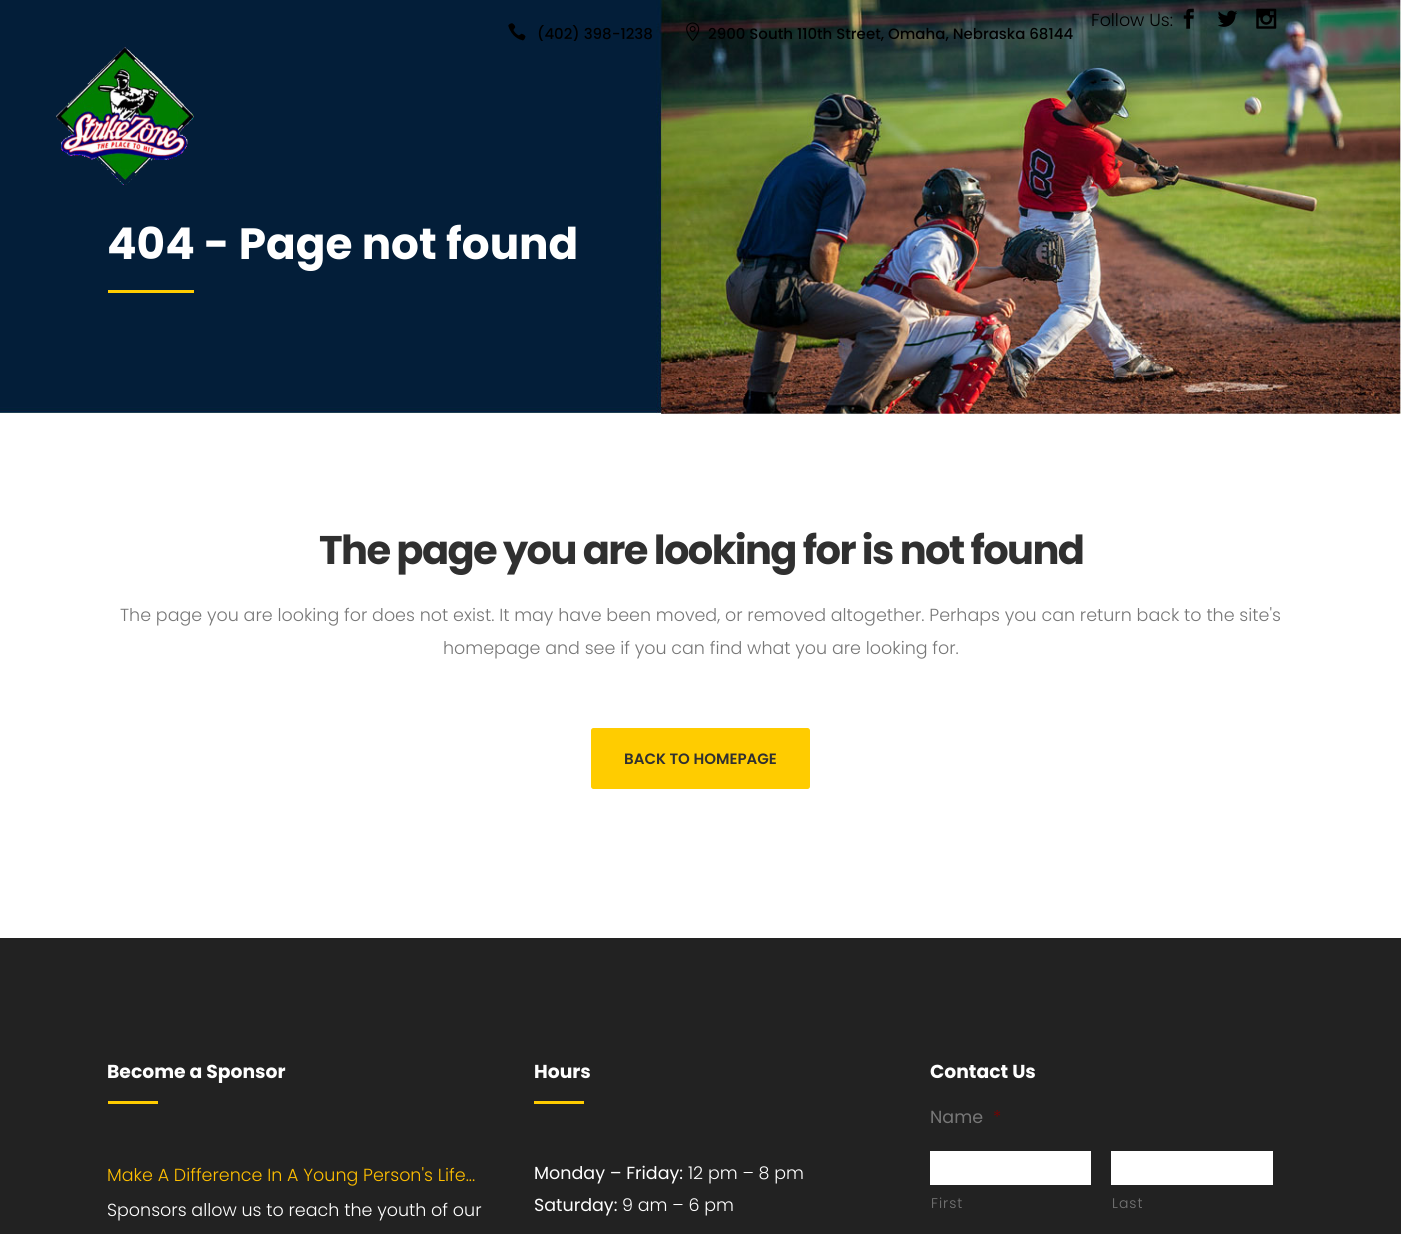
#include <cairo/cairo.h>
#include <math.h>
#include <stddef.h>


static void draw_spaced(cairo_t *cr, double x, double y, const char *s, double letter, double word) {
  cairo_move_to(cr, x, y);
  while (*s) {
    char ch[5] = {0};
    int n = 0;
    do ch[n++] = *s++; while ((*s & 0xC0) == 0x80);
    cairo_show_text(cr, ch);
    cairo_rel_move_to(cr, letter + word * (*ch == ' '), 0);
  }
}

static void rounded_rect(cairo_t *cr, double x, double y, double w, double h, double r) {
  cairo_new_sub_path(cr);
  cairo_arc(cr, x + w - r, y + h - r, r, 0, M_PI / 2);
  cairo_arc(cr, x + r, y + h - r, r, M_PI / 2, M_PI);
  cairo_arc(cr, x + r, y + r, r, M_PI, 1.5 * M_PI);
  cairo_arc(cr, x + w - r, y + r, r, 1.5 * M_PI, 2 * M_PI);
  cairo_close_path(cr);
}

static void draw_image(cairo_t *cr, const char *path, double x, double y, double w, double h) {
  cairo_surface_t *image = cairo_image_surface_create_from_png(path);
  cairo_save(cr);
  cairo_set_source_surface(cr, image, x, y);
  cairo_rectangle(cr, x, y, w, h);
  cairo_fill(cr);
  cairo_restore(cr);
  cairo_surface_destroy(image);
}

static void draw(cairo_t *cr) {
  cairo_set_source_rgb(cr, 1, 1, 1);
  cairo_paint(cr);
  draw_image(cr, "images/7.png", 0, 0, 1401, 414);
  draw_image(cr, "images/1.png", 1183, 8, 11, 21);
  draw_image(cr, "images/2.png", 1218, 10, 20, 17);
  draw_image(cr, "images/3.png", 1256, 8, 21, 21);
  draw_image(cr, "images/4.png", 508, 23, 18, 18);
  draw_image(cr, "images/5.png", 686, 22, 14, 19);
  draw_image(cr, "images/6.png", 56, 47, 138, 138);
  cairo_set_source_rgb(cr, 1, 204 / 255.0, 0);
  cairo_rectangle(cr, 108, 290, 86, 3);
  cairo_fill(cr);
  rounded_rect(cr, 591, 728, 219, 61, 2.5);
  cairo_fill(cr);
  cairo_set_source_rgb(cr, 34 / 255.0, 34 / 255.0, 34 / 255.0);
  cairo_rectangle(cr, 0, 938, 1401, 296);
  cairo_fill(cr);
  cairo_set_source_rgb(cr, 1, 204 / 255.0, 0);
  cairo_rectangle(cr, 108, 1101, 50, 3);
  cairo_fill(cr);
  cairo_rectangle(cr, 534, 1101, 50, 3);
  cairo_fill(cr);
  cairo_set_source_rgb(cr, 1, 1, 1);
  cairo_rectangle(cr, 930, 1151, 161, 34);
  cairo_fill(cr);
  cairo_rectangle(cr, 1111, 1151, 162, 34);
  cairo_fill(cr);
  cairo_select_font_face(cr, "Poppins Light", CAIRO_FONT_SLANT_NORMAL, CAIRO_FONT_WEIGHT_NORMAL);
  cairo_set_font_size(cr, 17.5);
  cairo_set_source_rgb(cr, 0, 0, 0);
  cairo_move_to(cr, 1091, 26);
  cairo_show_text(cr, "Follow Us:");
  cairo_save(cr);
  cairo_rectangle(cr, 0, 0, 1401, 41);
  cairo_clip(cr);
  cairo_select_font_face(cr, "Poppins Medium", CAIRO_FONT_SLANT_NORMAL, CAIRO_FONT_WEIGHT_NORMAL);
  cairo_set_font_size(cr, 15);
  cairo_move_to(cr, 537, 39);
  cairo_show_text(cr, "(402) 398-1238");
  cairo_restore(cr);
  cairo_select_font_face(cr, "Poppins Medium", CAIRO_FONT_SLANT_NORMAL, CAIRO_FONT_WEIGHT_NORMAL);
  cairo_set_font_size(cr, 15);
  cairo_move_to(cr, 708, 39);
  cairo_show_text(cr, "2900 South 110th Street, Omaha, Nebraska 68144");
  cairo_select_font_face(cr, "Poppins", CAIRO_FONT_SLANT_NORMAL, CAIRO_FONT_WEIGHT_BOLD);
  cairo_set_font_size(cr, 43.75);
  cairo_set_source_rgb(cr, 1, 1, 1);
  cairo_move_to(cr, 107, 259);
  cairo_show_text(cr, "404 - Page not found");
  cairo_set_font_size(cr, 40);
  cairo_set_source_rgb(cr, 48 / 255.0, 48 / 255.0, 48 / 255.0);
  draw_spaced(cr, 319, 564, "The page you are looking for is not found", -1.6, 0);
  cairo_select_font_face(cr, "Poppins Light", CAIRO_FONT_SLANT_NORMAL, CAIRO_FONT_WEIGHT_NORMAL);
  cairo_set_font_size(cr, 17.5);
  cairo_set_source_rgb(cr, 119 / 255.0, 119 / 255.0, 119 / 255.0);
  cairo_move_to(cr, 120, 621);
  cairo_show_text(cr, "The page you are looking for does not exist. It may have been moved, or removed altogether. Perhaps you can return back to the site's");
  cairo_move_to(cr, 443, 654);
  cairo_show_text(cr, "homepage and see if you can find what you are looking for.");
  cairo_select_font_face(cr, "Poppins SemiBold", CAIRO_FONT_SLANT_NORMAL, CAIRO_FONT_WEIGHT_NORMAL);
  cairo_set_font_size(cr, 15);
  cairo_set_source_rgb(cr, 48 / 255.0, 48 / 255.0, 48 / 255.0);
  cairo_move_to(cr, 624, 764);
  cairo_show_text(cr, "BACK TO HOMEPAGE");
  cairo_select_font_face(cr, "Poppins", CAIRO_FONT_SLANT_NORMAL, CAIRO_FONT_WEIGHT_BOLD);
  cairo_set_font_size(cr, 18.75);
  cairo_set_source_rgb(cr, 1, 1, 1);
  cairo_move_to(cr, 107, 1078);
  cairo_show_text(cr, "Become a Sponsor");
  cairo_select_font_face(cr, "Poppins Light", CAIRO_FONT_SLANT_NORMAL, CAIRO_FONT_WEIGHT_NORMAL);
  cairo_set_font_size(cr, 17.5);
  cairo_set_source_rgb(cr, 1, 191 / 255.0, 0);
  cairo_move_to(cr, 107, 1181);
  cairo_show_text(cr, "Make A Difference In A Young Person's Life...");
  cairo_set_source_rgb(cr, 1, 1, 1);
  cairo_move_to(cr, 107, 1216);
  cairo_show_text(cr, "Sponsors allow us to reach the youth of our");
  cairo_select_font_face(cr, "Poppins", CAIRO_FONT_SLANT_NORMAL, CAIRO_FONT_WEIGHT_BOLD);
  cairo_set_font_size(cr, 18.75);
  cairo_move_to(cr, 534, 1078);
  cairo_show_text(cr, "Hours");
  cairo_select_font_face(cr, "Poppins", CAIRO_FONT_SLANT_NORMAL, CAIRO_FONT_WEIGHT_NORMAL);
  cairo_set_font_size(cr, 17.5);
  cairo_move_to(cr, 534, 1179);
  cairo_show_text(cr, "Monday – Friday:");
  cairo_select_font_face(cr, "Poppins Light", CAIRO_FONT_SLANT_NORMAL, CAIRO_FONT_WEIGHT_NORMAL);
  cairo_move_to(cr, 688, 1179);
  cairo_show_text(cr, "12 pm – 8 pm");
  cairo_select_font_face(cr, "Poppins", CAIRO_FONT_SLANT_NORMAL, CAIRO_FONT_WEIGHT_NORMAL);
  cairo_move_to(cr, 534, 1211);
  cairo_show_text(cr, "Saturday:");
  cairo_select_font_face(cr, "Poppins Light", CAIRO_FONT_SLANT_NORMAL, CAIRO_FONT_WEIGHT_NORMAL);
  cairo_move_to(cr, 622, 1211);
  cairo_show_text(cr, "9 am – 6 pm");
  cairo_select_font_face(cr, "Poppins", CAIRO_FONT_SLANT_NORMAL, CAIRO_FONT_WEIGHT_BOLD);
  cairo_set_font_size(cr, 18.75);
  cairo_move_to(cr, 930, 1078);
  cairo_show_text(cr, "Contact Us");
  cairo_select_font_face(cr, "Poppins", CAIRO_FONT_SLANT_NORMAL, CAIRO_FONT_WEIGHT_NORMAL);
  cairo_set_font_size(cr, 17.5);
  cairo_set_source_rgb(cr, 119 / 255.0, 119 / 255.0, 119 / 255.0);
  cairo_move_to(cr, 930, 1123);
  cairo_show_text(cr, "Name");
  cairo_select_font_face(cr, "Poppins Light", CAIRO_FONT_SLANT_NORMAL, CAIRO_FONT_WEIGHT_NORMAL);
  cairo_set_source_rgb(cr, 121 / 255.0, 0, 0);
  cairo_move_to(cr, 993, 1123);
  cairo_show_text(cr, "*");
  cairo_set_font_size(cr, 14);
  cairo_set_source_rgb(cr, 119 / 255.0, 119 / 255.0, 119 / 255.0);
  draw_spaced(cr, 931, 1208, "First", 1, 0);
  draw_spaced(cr, 1112, 1208, "Last", 1, 0);
}

int main(void) {
  cairo_surface_t *surface = cairo_image_surface_create(CAIRO_FORMAT_RGB24, 1401, 1234);
  cairo_t *cr = cairo_create(surface);
  cairo_font_options_t *options = cairo_font_options_create();
  cairo_font_options_set_hint_metrics(options, CAIRO_HINT_METRICS_OFF);
  cairo_font_options_set_hint_style(options, CAIRO_HINT_STYLE_NONE);
  cairo_set_font_options(cr, options);
  cairo_set_miter_limit(cr, 4);
  draw(cr);
  cairo_surface_write_to_png(surface, "out.png");
  cairo_font_options_destroy(options);
  cairo_destroy(cr);
  cairo_surface_destroy(surface);
  return 0;
}
